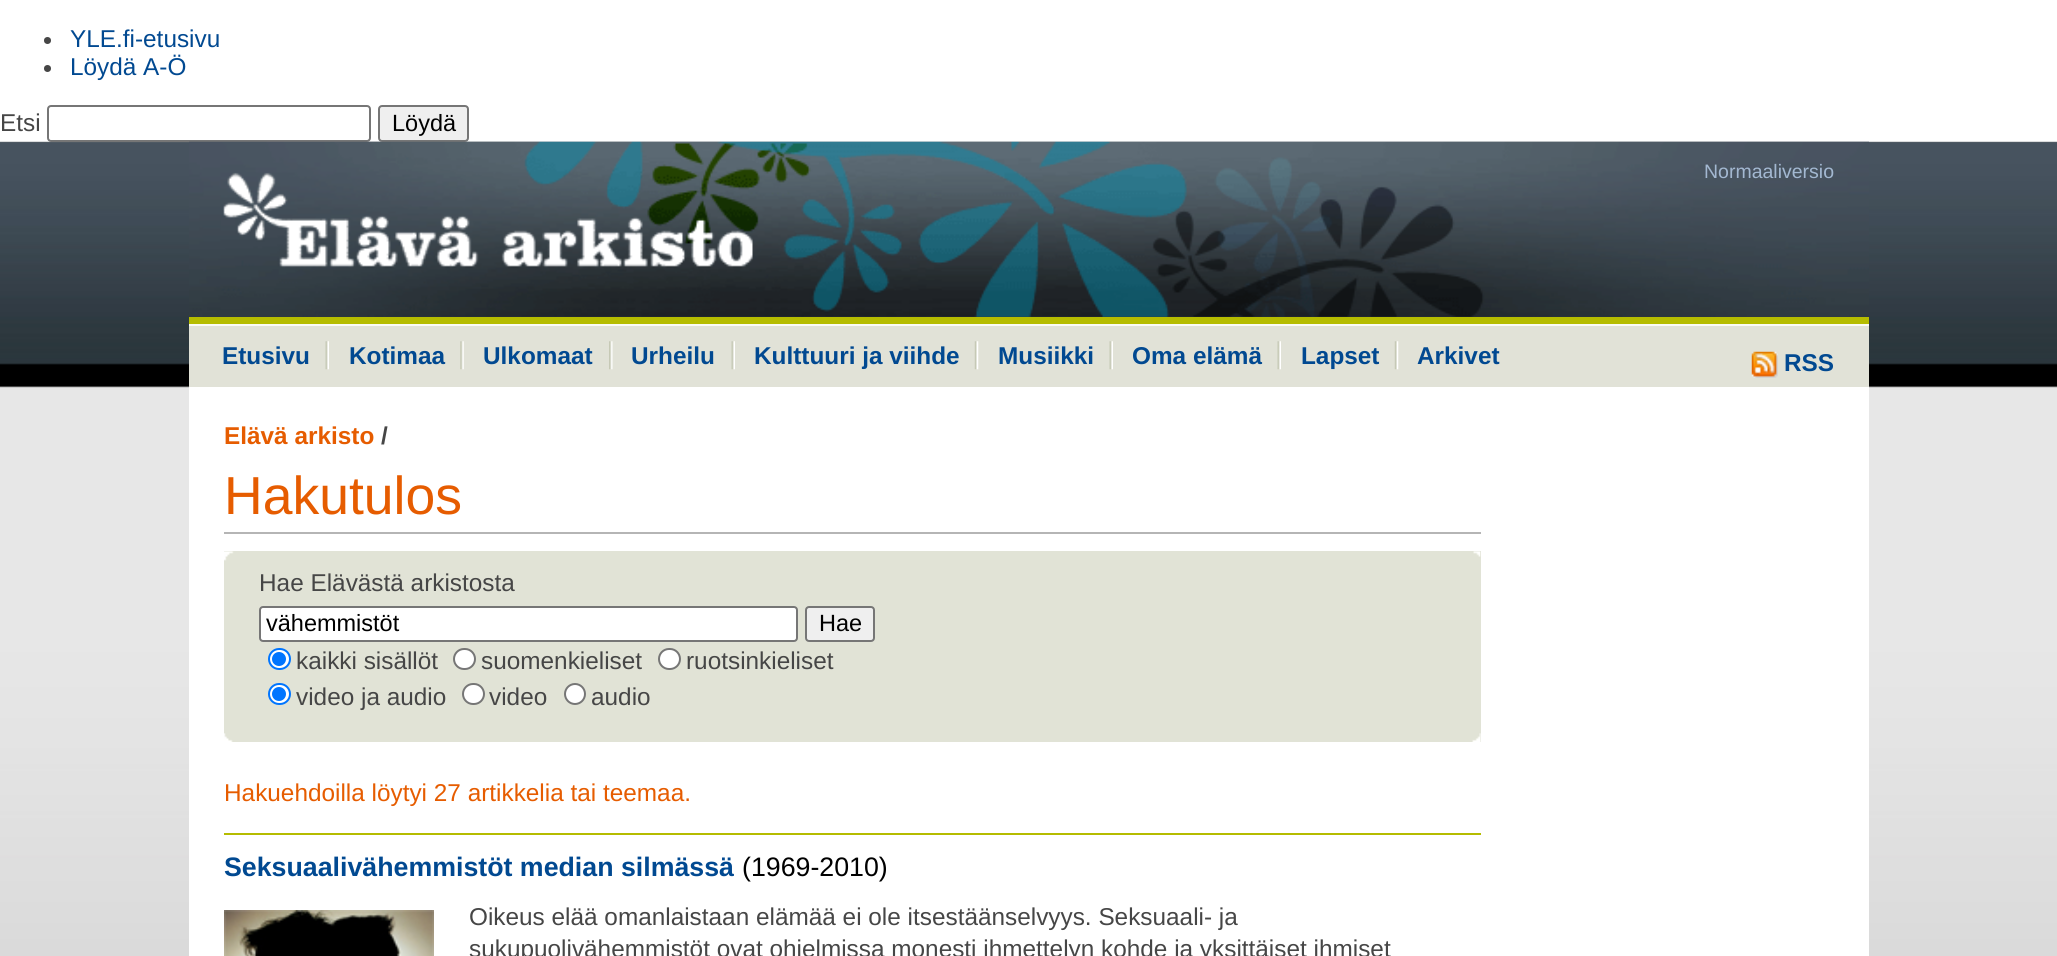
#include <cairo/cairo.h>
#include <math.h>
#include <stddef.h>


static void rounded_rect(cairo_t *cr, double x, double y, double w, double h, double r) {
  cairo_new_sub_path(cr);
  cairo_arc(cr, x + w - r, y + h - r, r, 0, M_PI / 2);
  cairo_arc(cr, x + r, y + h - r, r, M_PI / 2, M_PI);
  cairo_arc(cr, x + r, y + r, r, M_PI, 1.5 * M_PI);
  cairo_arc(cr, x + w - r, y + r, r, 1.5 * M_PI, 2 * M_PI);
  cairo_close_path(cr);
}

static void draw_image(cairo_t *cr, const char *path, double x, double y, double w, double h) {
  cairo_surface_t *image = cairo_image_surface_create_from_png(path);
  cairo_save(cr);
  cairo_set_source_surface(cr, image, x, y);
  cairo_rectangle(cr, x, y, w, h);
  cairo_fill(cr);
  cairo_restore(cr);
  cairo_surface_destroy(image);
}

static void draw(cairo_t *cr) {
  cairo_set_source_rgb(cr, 1, 1, 1);
  cairo_paint(cr);
  cairo_set_source_rgb(cr, 70 / 255.0, 70 / 255.0, 70 / 255.0);
  cairo_arc(cr, 47.5, 40.5, 3.5, 0, 2 * M_PI);
  cairo_fill(cr);
  cairo_arc(cr, 47.5, 68.5, 3.5, 0, 2 * M_PI);
  cairo_fill(cr);
  draw_image(cr, "images/1.png", 0, 141, 2057, 815);
  cairo_set_source_rgb(cr, 1, 1, 1);
  rounded_rect(cr, 48, 106, 322, 35, 3);
  cairo_fill_preserve(cr);
  cairo_set_source_rgb(cr, 118 / 255.0, 118 / 255.0, 118 / 255.0);
  cairo_stroke(cr);
  cairo_set_source_rgb(cr, 239 / 255.0, 239 / 255.0, 239 / 255.0);
  rounded_rect(cr, 379, 106, 89, 35, 3);
  cairo_fill_preserve(cr);
  cairo_set_source_rgb(cr, 118 / 255.0, 118 / 255.0, 118 / 255.0);
  cairo_stroke(cr);
  draw_image(cr, "images/2.png", 189, 141, 1680, 176);
  cairo_set_source_rgb(cr, 181 / 255.0, 188 / 255.0, 0);
  cairo_rectangle(cr, 189, 317, 1680, 7);
  cairo_fill(cr);
  cairo_set_source_rgb(cr, 225 / 255.0, 226 / 255.0, 215 / 255.0);
  cairo_rectangle(cr, 189, 326, 1680, 61);
  cairo_fill(cr);
  cairo_set_source_rgb(cr, 250 / 255.0, 251 / 255.0, 245 / 255.0);
  cairo_rectangle(cr, 189, 324, 1680, 2);
  cairo_fill(cr);
  draw_image(cr, "images/3.png", 325, 341, 4, 29);
  draw_image(cr, "images/4.png", 460, 341, 4, 29);
  draw_image(cr, "images/5.png", 609, 341, 4, 29);
  draw_image(cr, "images/3.png", 731, 341, 4, 29);
  draw_image(cr, "images/6.png", 974, 341, 5, 29);
  draw_image(cr, "images/3.png", 1109, 341, 4, 29);
  draw_image(cr, "images/3.png", 1277, 341, 4, 29);
  draw_image(cr, "images/7.png", 1394, 341, 5, 29);
  draw_image(cr, "images/8.png", 1751, 351, 27, 27);
  cairo_set_source_rgb(cr, 1, 1, 1);
  cairo_rectangle(cr, 189, 387, 1680, 569);
  cairo_fill(cr);
  cairo_set_source_rgb(cr, 181 / 255.0, 181 / 255.0, 181 / 255.0);
  cairo_rectangle(cr, 224, 532, 1257, 2);
  cairo_fill(cr);
  cairo_set_source_rgb(cr, 225 / 255.0, 227 / 255.0, 214 / 255.0);
  cairo_rectangle(cr, 224, 551, 1257, 191);
  cairo_fill(cr);
  draw_image(cr, "images/9.png", 224, 733, 1257, 9);
  draw_image(cr, "images/10.png", 224, 551, 1257, 10);
  cairo_set_source_rgb(cr, 1, 1, 1);
  rounded_rect(cr, 260, 607, 537, 34, 3);
  cairo_fill_preserve(cr);
  cairo_set_source_rgb(cr, 118 / 255.0, 118 / 255.0, 118 / 255.0);
  cairo_stroke(cr);
  cairo_set_source_rgb(cr, 239 / 255.0, 239 / 255.0, 239 / 255.0);
  rounded_rect(cr, 806, 607, 68, 34, 3);
  cairo_fill_preserve(cr);
  cairo_set_source_rgb(cr, 118 / 255.0, 118 / 255.0, 118 / 255.0);
  cairo_stroke(cr);
  cairo_set_source_rgb(cr, 1, 1, 1);
  rounded_rect(cr, 269, 649, 21, 20, 10);
  cairo_fill_preserve(cr);
  cairo_set_source_rgb(cr, 0, 117 / 255.0, 1);
  cairo_stroke(cr);
  cairo_arc(cr, 279, 659, 7, 0, 2 * M_PI);
  cairo_fill(cr);
  cairo_set_source_rgb(cr, 1, 1, 1);
  rounded_rect(cr, 454, 649, 21, 20, 10);
  cairo_fill_preserve(cr);
  cairo_set_source_rgb(cr, 118 / 255.0, 118 / 255.0, 118 / 255.0);
  cairo_stroke(cr);
  cairo_set_source_rgb(cr, 1, 1, 1);
  rounded_rect(cr, 659, 649, 21, 20, 10);
  cairo_fill_preserve(cr);
  cairo_set_source_rgb(cr, 118 / 255.0, 118 / 255.0, 118 / 255.0);
  cairo_stroke(cr);
  cairo_set_source_rgb(cr, 1, 1, 1);
  rounded_rect(cr, 269, 684, 21, 20, 10);
  cairo_fill_preserve(cr);
  cairo_set_source_rgb(cr, 0, 117 / 255.0, 1);
  cairo_stroke(cr);
  cairo_arc(cr, 279, 694, 7, 0, 2 * M_PI);
  cairo_fill(cr);
  cairo_set_source_rgb(cr, 1, 1, 1);
  rounded_rect(cr, 463, 684, 21, 20, 10);
  cairo_fill_preserve(cr);
  cairo_set_source_rgb(cr, 118 / 255.0, 118 / 255.0, 118 / 255.0);
  cairo_stroke(cr);
  cairo_set_source_rgb(cr, 1, 1, 1);
  cairo_arc(cr, 575, 694, 10, 0, 2 * M_PI);
  cairo_fill_preserve(cr);
  cairo_set_source_rgb(cr, 118 / 255.0, 118 / 255.0, 118 / 255.0);
  cairo_stroke(cr);
  cairo_set_source_rgb(cr, 181 / 255.0, 188 / 255.0, 0);
  cairo_rectangle(cr, 224, 833, 1257, 2);
  cairo_fill(cr);
  draw_image(cr, "images/11.png", 224, 910, 210, 46);
  cairo_select_font_face(cr, "Liberation Sans", CAIRO_FONT_SLANT_NORMAL, CAIRO_FONT_WEIGHT_NORMAL);
  cairo_set_font_size(cr, 24.35);
  cairo_set_source_rgb(cr, 1 / 255.0, 73 / 255.0, 145 / 255.0);
  cairo_move_to(cr, 70, 47);
  cairo_show_text(cr, "YLE.fi-etusivu");
  cairo_move_to(cr, 70, 75);
  cairo_show_text(cr, "Löydä A-Ö");
  cairo_set_source_rgb(cr, 70 / 255.0, 70 / 255.0, 70 / 255.0);
  cairo_move_to(cr, 0, 131);
  cairo_show_text(cr, "Etsi");
  cairo_set_font_size(cr, 23.5);
  cairo_set_source_rgb(cr, 0, 0, 0);
  cairo_move_to(cr, 392, 131);
  cairo_show_text(cr, "Löydä");
  cairo_set_font_size(cr, 19.5);
  cairo_set_source_rgb(cr, 163 / 255.0, 184 / 255.0, 209 / 255.0);
  cairo_move_to(cr, 1704, 178);
  cairo_show_text(cr, "Normaaliversio");
  cairo_select_font_face(cr, "Liberation Sans", CAIRO_FONT_SLANT_NORMAL, CAIRO_FONT_WEIGHT_BOLD);
  cairo_set_font_size(cr, 24.35);
  cairo_set_source_rgb(cr, 1 / 255.0, 73 / 255.0, 145 / 255.0);
  cairo_move_to(cr, 222, 364);
  cairo_show_text(cr, "Etusivu");
  cairo_move_to(cr, 349, 364);
  cairo_show_text(cr, "Kotimaa");
  cairo_move_to(cr, 483, 364);
  cairo_show_text(cr, "Ulkomaat");
  cairo_move_to(cr, 631, 364);
  cairo_show_text(cr, "Urheilu");
  cairo_move_to(cr, 754, 364);
  cairo_show_text(cr, "Kulttuuri ja viihde");
  cairo_move_to(cr, 998, 364);
  cairo_show_text(cr, "Musiikki");
  cairo_move_to(cr, 1132, 364);
  cairo_show_text(cr, "Oma elämä");
  cairo_move_to(cr, 1301, 364);
  cairo_show_text(cr, "Lapset");
  cairo_move_to(cr, 1417, 364);
  cairo_show_text(cr, "Arkivet");
  cairo_move_to(cr, 1784, 371);
  cairo_show_text(cr, "RSS");
  cairo_set_source_rgb(cr, 230 / 255.0, 92 / 255.0, 0);
  cairo_move_to(cr, 224, 444);
  cairo_show_text(cr, "Elävä arkisto");
  cairo_set_source_rgb(cr, 70 / 255.0, 70 / 255.0, 70 / 255.0);
  cairo_move_to(cr, 381, 444);
  cairo_show_text(cr, "/");
  cairo_select_font_face(cr, "Liberation Sans", CAIRO_FONT_SLANT_NORMAL, CAIRO_FONT_WEIGHT_NORMAL);
  cairo_set_font_size(cr, 53.5);
  cairo_set_source_rgb(cr, 230 / 255.0, 92 / 255.0, 0);
  cairo_move_to(cr, 224, 514);
  cairo_show_text(cr, "Hakutulos");
  cairo_set_font_size(cr, 24.35);
  cairo_set_source_rgb(cr, 70 / 255.0, 70 / 255.0, 70 / 255.0);
  cairo_move_to(cr, 259, 591);
  cairo_show_text(cr, "Hae Elävästä arkistosta");
  cairo_set_font_size(cr, 23.5);
  cairo_set_source_rgb(cr, 0, 0, 0);
  cairo_move_to(cr, 266, 631);
  cairo_show_text(cr, "vähemmistöt");
  cairo_move_to(cr, 819, 631);
  cairo_show_text(cr, "Hae");
  cairo_set_font_size(cr, 24.35);
  cairo_set_source_rgb(cr, 70 / 255.0, 70 / 255.0, 70 / 255.0);
  cairo_move_to(cr, 296, 669);
  cairo_show_text(cr, "kaikki sisällöt");
  cairo_move_to(cr, 481, 669);
  cairo_show_text(cr, "suomenkieliset");
  cairo_move_to(cr, 686, 669);
  cairo_show_text(cr, "ruotsinkieliset");
  cairo_move_to(cr, 296, 705);
  cairo_show_text(cr, "video ja audio");
  cairo_move_to(cr, 489, 705);
  cairo_show_text(cr, "video");
  cairo_move_to(cr, 591, 705);
  cairo_show_text(cr, "audio");
  cairo_set_source_rgb(cr, 230 / 255.0, 92 / 255.0, 0);
  cairo_move_to(cr, 224, 801);
  cairo_show_text(cr, "Hakuehdoilla löytyi 27 artikkelia tai teemaa.");
  cairo_select_font_face(cr, "Liberation Sans", CAIRO_FONT_SLANT_NORMAL, CAIRO_FONT_WEIGHT_BOLD);
  cairo_set_font_size(cr, 26.75);
  cairo_set_source_rgb(cr, 1 / 255.0, 73 / 255.0, 145 / 255.0);
  cairo_move_to(cr, 224, 876);
  cairo_show_text(cr, "Seksuaalivähemmistöt median silmässä");
  cairo_select_font_face(cr, "Liberation Sans", CAIRO_FONT_SLANT_NORMAL, CAIRO_FONT_WEIGHT_NORMAL);
  cairo_set_source_rgb(cr, 0, 0, 0);
  cairo_move_to(cr, 742, 876);
  cairo_show_text(cr, "(1969-2010)");
  cairo_set_font_size(cr, 24.35);
  cairo_set_source_rgb(cr, 70 / 255.0, 70 / 255.0, 70 / 255.0);
  cairo_move_to(cr, 469, 925);
  cairo_show_text(cr, "Oikeus elää omanlaistaan elämää ei ole itsestäänselvyys. Seksuaali- ja");
  cairo_move_to(cr, 469, 957);
  cairo_show_text(cr, "sukupuolivähemmistöt ovat ohjelmissa monesti ihmettelyn kohde ja yksittäiset ihmiset");
}

int main(void) {
  cairo_surface_t *surface = cairo_image_surface_create(CAIRO_FORMAT_RGB24, 2057, 956);
  cairo_t *cr = cairo_create(surface);
  cairo_font_options_t *options = cairo_font_options_create();
  cairo_font_options_set_hint_metrics(options, CAIRO_HINT_METRICS_OFF);
  cairo_font_options_set_hint_style(options, CAIRO_HINT_STYLE_NONE);
  cairo_set_font_options(cr, options);
  cairo_set_miter_limit(cr, 4);
  draw(cr);
  cairo_surface_write_to_png(surface, "out.png");
  cairo_font_options_destroy(options);
  cairo_destroy(cr);
  cairo_surface_destroy(surface);
  return 0;
}
